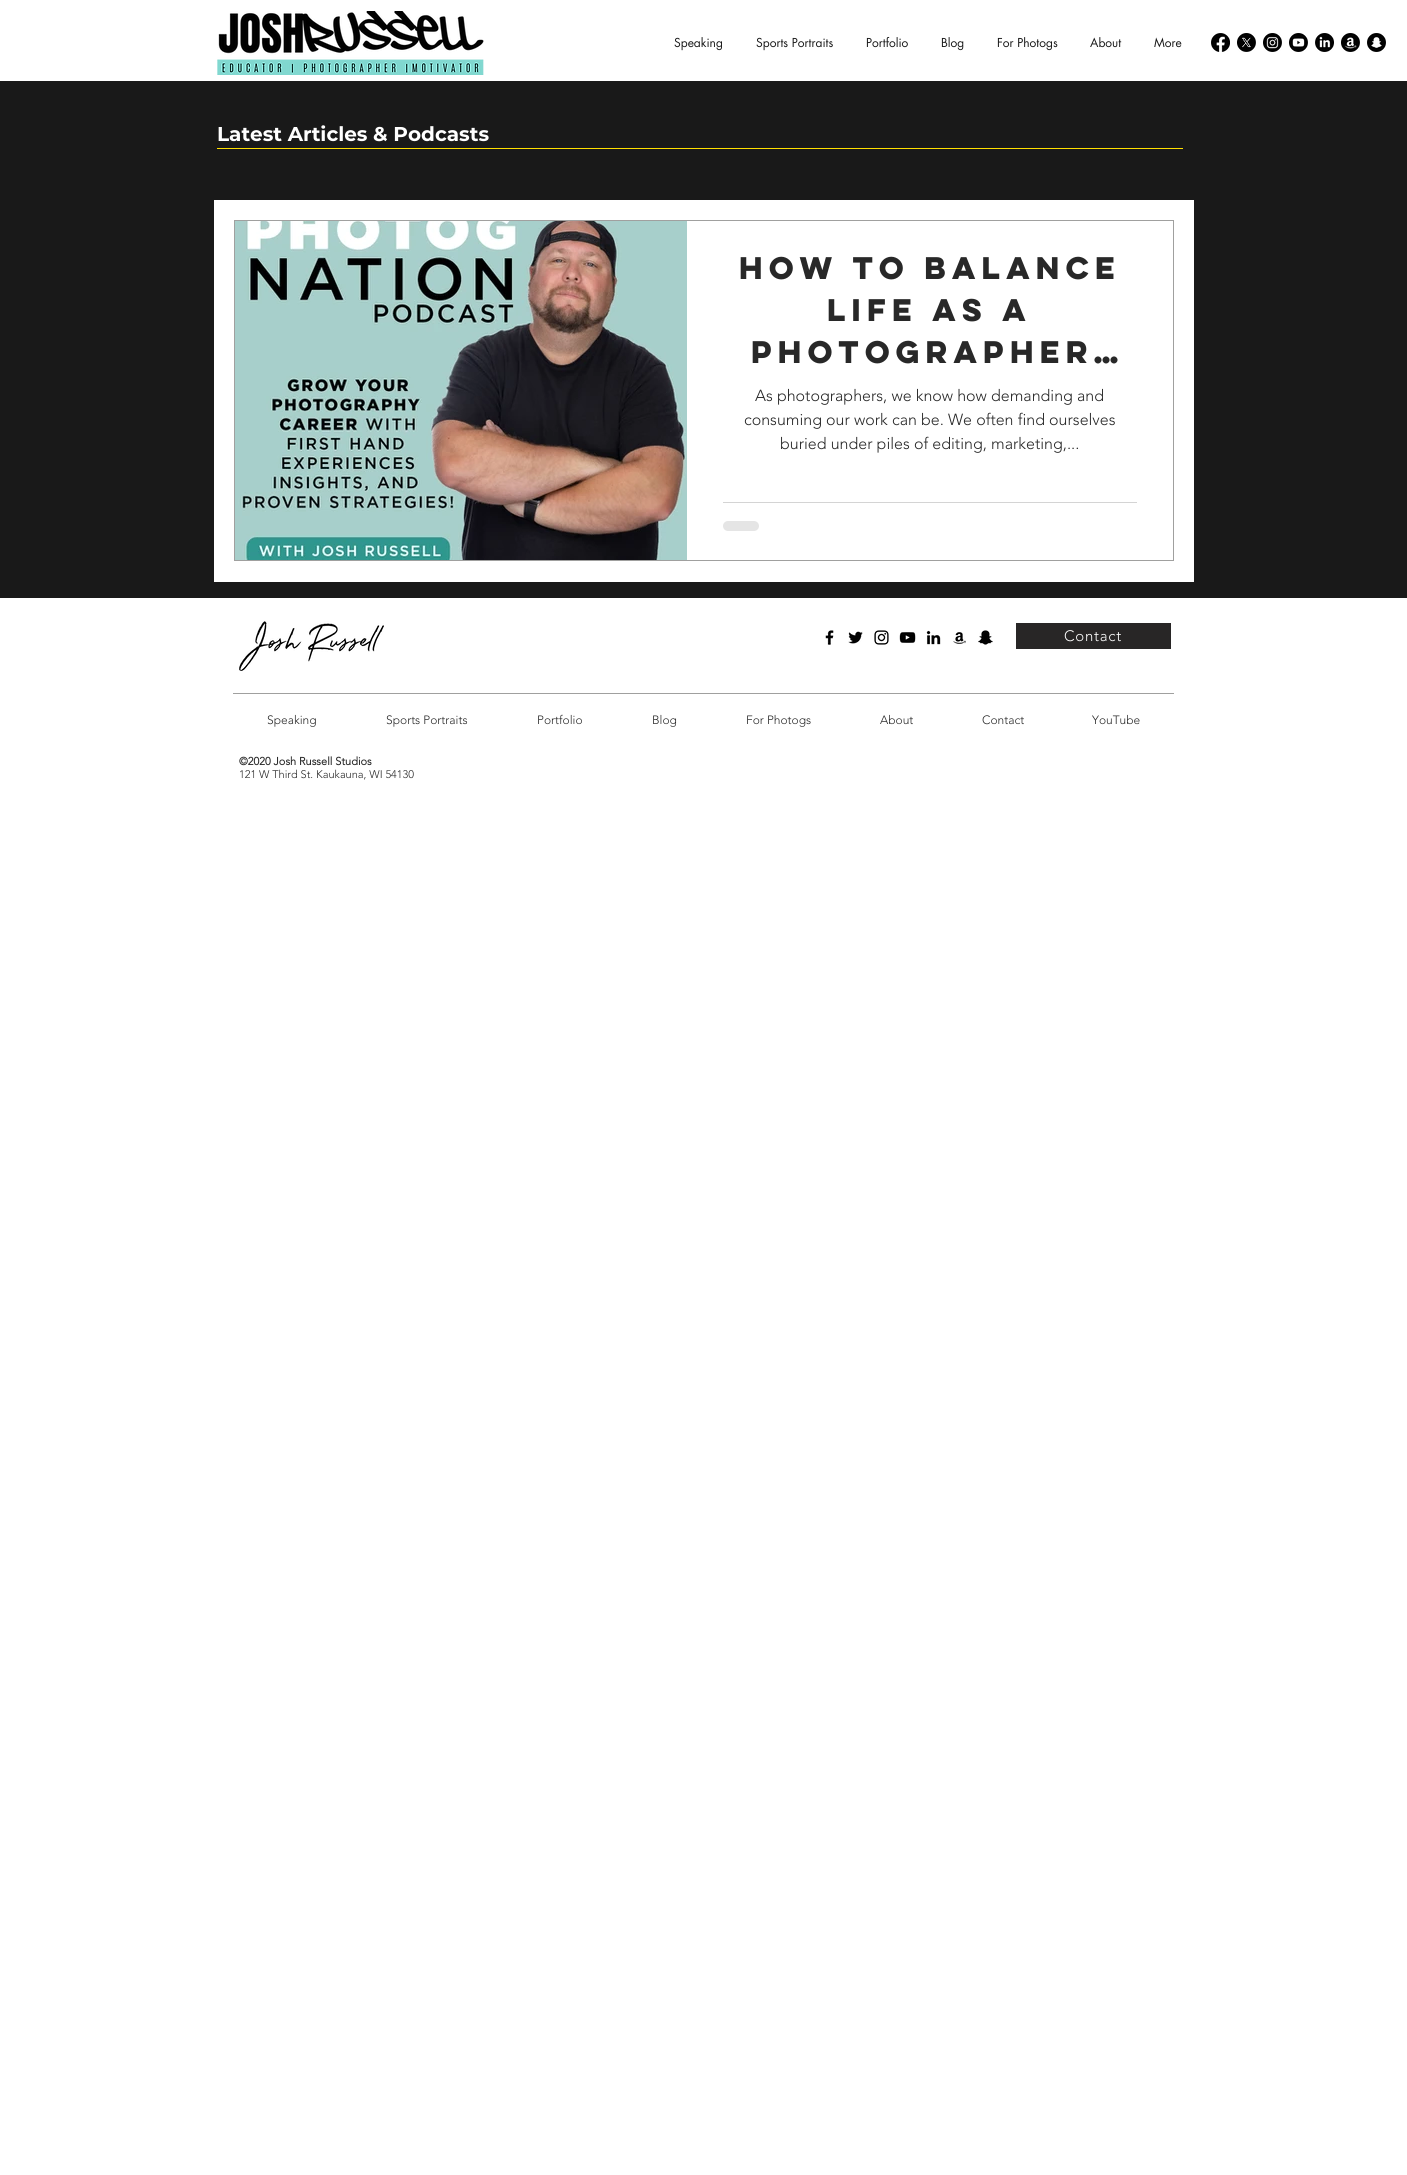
#include <cairo/cairo.h>
#include <math.h>
#include <stddef.h>


static void draw_spaced(cairo_t *cr, double x, double y, const char *s, double letter, double word) {
  cairo_move_to(cr, x, y);
  while (*s) {
    char ch[5] = {0};
    int n = 0;
    do ch[n++] = *s++; while ((*s & 0xC0) == 0x80);
    cairo_show_text(cr, ch);
    cairo_rel_move_to(cr, letter + word * (*ch == ' '), 0);
  }
}

static void rounded_rect(cairo_t *cr, double x, double y, double w, double h, double r) {
  cairo_new_sub_path(cr);
  cairo_arc(cr, x + w - r, y + h - r, r, 0, M_PI / 2);
  cairo_arc(cr, x + r, y + h - r, r, M_PI / 2, M_PI);
  cairo_arc(cr, x + r, y + r, r, M_PI, 1.5 * M_PI);
  cairo_arc(cr, x + w - r, y + r, r, 1.5 * M_PI, 2 * M_PI);
  cairo_close_path(cr);
}

static void draw_image(cairo_t *cr, const char *path, double x, double y, double w, double h) {
  cairo_surface_t *image = cairo_image_surface_create_from_png(path);
  cairo_save(cr);
  cairo_set_source_surface(cr, image, x, y);
  cairo_rectangle(cr, x, y, w, h);
  cairo_fill(cr);
  cairo_restore(cr);
  cairo_surface_destroy(image);
}

static void draw(cairo_t *cr) {
  cairo_set_source_rgb(cr, 1, 1, 1);
  cairo_paint(cr);
  draw_image(cr, "images/1.png", 217, 11, 267, 64);
  draw_image(cr, "images/2.png", 1211, 33, 19, 19);
  draw_image(cr, "images/3.png", 1237, 33, 19, 19);
  draw_image(cr, "images/4.png", 1263, 33, 19, 19);
  draw_image(cr, "images/5.png", 1289, 33, 19, 19);
  draw_image(cr, "images/6.png", 1315, 33, 19, 19);
  draw_image(cr, "images/7.png", 1341, 33, 19, 19);
  draw_image(cr, "images/8.png", 1367, 33, 19, 19);
  cairo_set_source_rgb(cr, 25 / 255.0, 25 / 255.0, 25 / 255.0);
  cairo_rectangle(cr, 0, 81, 1407, 517);
  cairo_fill(cr);
  cairo_set_source_rgb(cr, 1, 223 / 255.0, 0);
  cairo_rectangle(cr, 217, 148, 966, 1);
  cairo_fill(cr);
  cairo_set_source_rgb(cr, 1, 1, 1);
  cairo_rectangle(cr, 214, 200, 980, 382);
  cairo_fill(cr);
  cairo_rectangle(cr, 234.5, 220.5, 939, 340);
  cairo_set_source_rgb(cr, 160 / 255.0, 160 / 255.0, 159 / 255.0);
  cairo_set_line_width(cr, 1);
  cairo_stroke(cr);
  draw_image(cr, "images/9.png", 235, 221, 452, 339);
  cairo_set_source_rgb(cr, 212 / 255.0, 212 / 255.0, 212 / 255.0);
  cairo_rectangle(cr, 723, 502, 414, 1);
  cairo_fill(cr);
  cairo_set_source_rgb(cr, 229 / 255.0, 229 / 255.0, 229 / 255.0);
  rounded_rect(cr, 723, 521, 36, 10, 5);
  cairo_fill(cr);
  draw_image(cr, "images/10.png", 239, 621, 145, 50);
  draw_image(cr, "images/11.png", 825, 630, 9, 15);
  draw_image(cr, "images/12.png", 848, 631, 15, 13);
  draw_image(cr, "images/13.png", 874, 630, 15, 15);
  draw_image(cr, "images/14.png", 899, 632, 17, 11);
  draw_image(cr, "images/15.png", 926, 630, 15, 15);
  draw_image(cr, "images/16.png", 953, 632, 13, 12);
  draw_image(cr, "images/17.png", 978, 630, 15, 15);
  cairo_set_source_rgb(cr, 40 / 255.0, 38 / 255.0, 38 / 255.0);
  cairo_rectangle(cr, 1016, 623, 155, 26);
  cairo_fill(cr);
  cairo_set_source_rgb(cr, 160 / 255.0, 160 / 255.0, 159 / 255.0);
  cairo_rectangle(cr, 233, 693, 941, 1);
  cairo_fill(cr);
  cairo_select_font_face(cr, "futura", CAIRO_FONT_SLANT_NORMAL, CAIRO_FONT_WEIGHT_NORMAL);
  cairo_set_font_size(cr, 12);
  cairo_set_source_rgb(cr, 25 / 255.0, 25 / 255.0, 25 / 255.0);
  cairo_move_to(cr, 674, 47);
  cairo_show_text(cr, "Speaking");
  cairo_move_to(cr, 756, 47);
  cairo_show_text(cr, "Sports Portraits");
  cairo_move_to(cr, 866, 47);
  cairo_show_text(cr, "Portfolio");
  cairo_move_to(cr, 941, 47);
  cairo_show_text(cr, "Blog");
  cairo_move_to(cr, 997, 47);
  cairo_show_text(cr, "For Photogs");
  cairo_move_to(cr, 1090, 47);
  cairo_show_text(cr, "About");
  cairo_move_to(cr, 1154, 47);
  cairo_show_text(cr, "More");
  cairo_select_font_face(cr, "Montserrat", CAIRO_FONT_SLANT_NORMAL, CAIRO_FONT_WEIGHT_BOLD);
  cairo_set_font_size(cr, 20);
  cairo_set_source_rgb(cr, 1, 1, 1);
  cairo_move_to(cr, 217, 141);
  cairo_show_text(cr, "Latest Articles & Podcasts");
  cairo_select_font_face(cr, "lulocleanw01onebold", CAIRO_FONT_SLANT_NORMAL, CAIRO_FONT_WEIGHT_BOLD);
  cairo_set_font_size(cr, 28);
  cairo_set_source_rgb(cr, 40 / 255.0, 40 / 255.0, 40 / 255.0);
  cairo_move_to(cr, 739, 279);
  cairo_show_text(cr, "How to balance");
  cairo_move_to(cr, 827, 321);
  cairo_show_text(cr, "life as a");
  cairo_move_to(cr, 751, 363);
  cairo_show_text(cr, "photographer…");
  cairo_select_font_face(cr, "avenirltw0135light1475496 Light", CAIRO_FONT_SLANT_NORMAL, CAIRO_FONT_WEIGHT_NORMAL);
  cairo_set_font_size(cr, 16);
  cairo_move_to(cr, 755, 401);
  cairo_show_text(cr, "As photographers, we know how demanding and");
  cairo_move_to(cr, 744, 425);
  cairo_show_text(cr, "consuming our work can be. We often find ourselves");
  cairo_move_to(cr, 780, 449);
  cairo_show_text(cr, "buried under piles of editing, marketing,...");
  cairo_set_font_size(cr, 15);
  cairo_set_source_rgb(cr, 1, 1, 1);
  draw_spaced(cr, 1064, 641, "Contact", 0.75, 0);
  cairo_set_font_size(cr, 12);
  cairo_set_source_rgb(cr, 40 / 255.0, 40 / 255.0, 40 / 255.0);
  cairo_move_to(cr, 267, 724);
  cairo_show_text(cr, "Speaking");
  cairo_move_to(cr, 386, 724);
  cairo_show_text(cr, "Sports Portraits");
  cairo_move_to(cr, 537, 724);
  cairo_show_text(cr, "Portfolio");
  cairo_move_to(cr, 652, 724);
  cairo_show_text(cr, "Blog");
  cairo_move_to(cr, 746, 724);
  cairo_show_text(cr, "For Photogs");
  cairo_move_to(cr, 880, 724);
  cairo_show_text(cr, "About");
  cairo_move_to(cr, 982, 724);
  cairo_show_text(cr, "Contact");
  cairo_move_to(cr, 1092, 724);
  cairo_show_text(cr, "YouTube");
  cairo_select_font_face(cr, "avenirltw0135light1475496", CAIRO_FONT_SLANT_NORMAL, CAIRO_FONT_WEIGHT_BOLD);
  cairo_set_font_size(cr, 11);
  cairo_move_to(cr, 239, 765);
  cairo_show_text(cr, "©2020 Josh Russell Studios");
  cairo_select_font_face(cr, "avenirltw0135light1475496 Light", CAIRO_FONT_SLANT_NORMAL, CAIRO_FONT_WEIGHT_NORMAL);
  cairo_move_to(cr, 239, 778);
  cairo_show_text(cr, "121 W Third St. Kaukauna, WI 54130");
}

int main(void) {
  cairo_surface_t *surface = cairo_image_surface_create(CAIRO_FORMAT_RGB24, 1407, 2175);
  cairo_t *cr = cairo_create(surface);
  cairo_font_options_t *options = cairo_font_options_create();
  cairo_font_options_set_hint_metrics(options, CAIRO_HINT_METRICS_OFF);
  cairo_font_options_set_hint_style(options, CAIRO_HINT_STYLE_NONE);
  cairo_set_font_options(cr, options);
  cairo_set_miter_limit(cr, 4);
  draw(cr);
  cairo_surface_write_to_png(surface, "out.png");
  cairo_font_options_destroy(options);
  cairo_destroy(cr);
  cairo_surface_destroy(surface);
  return 0;
}
